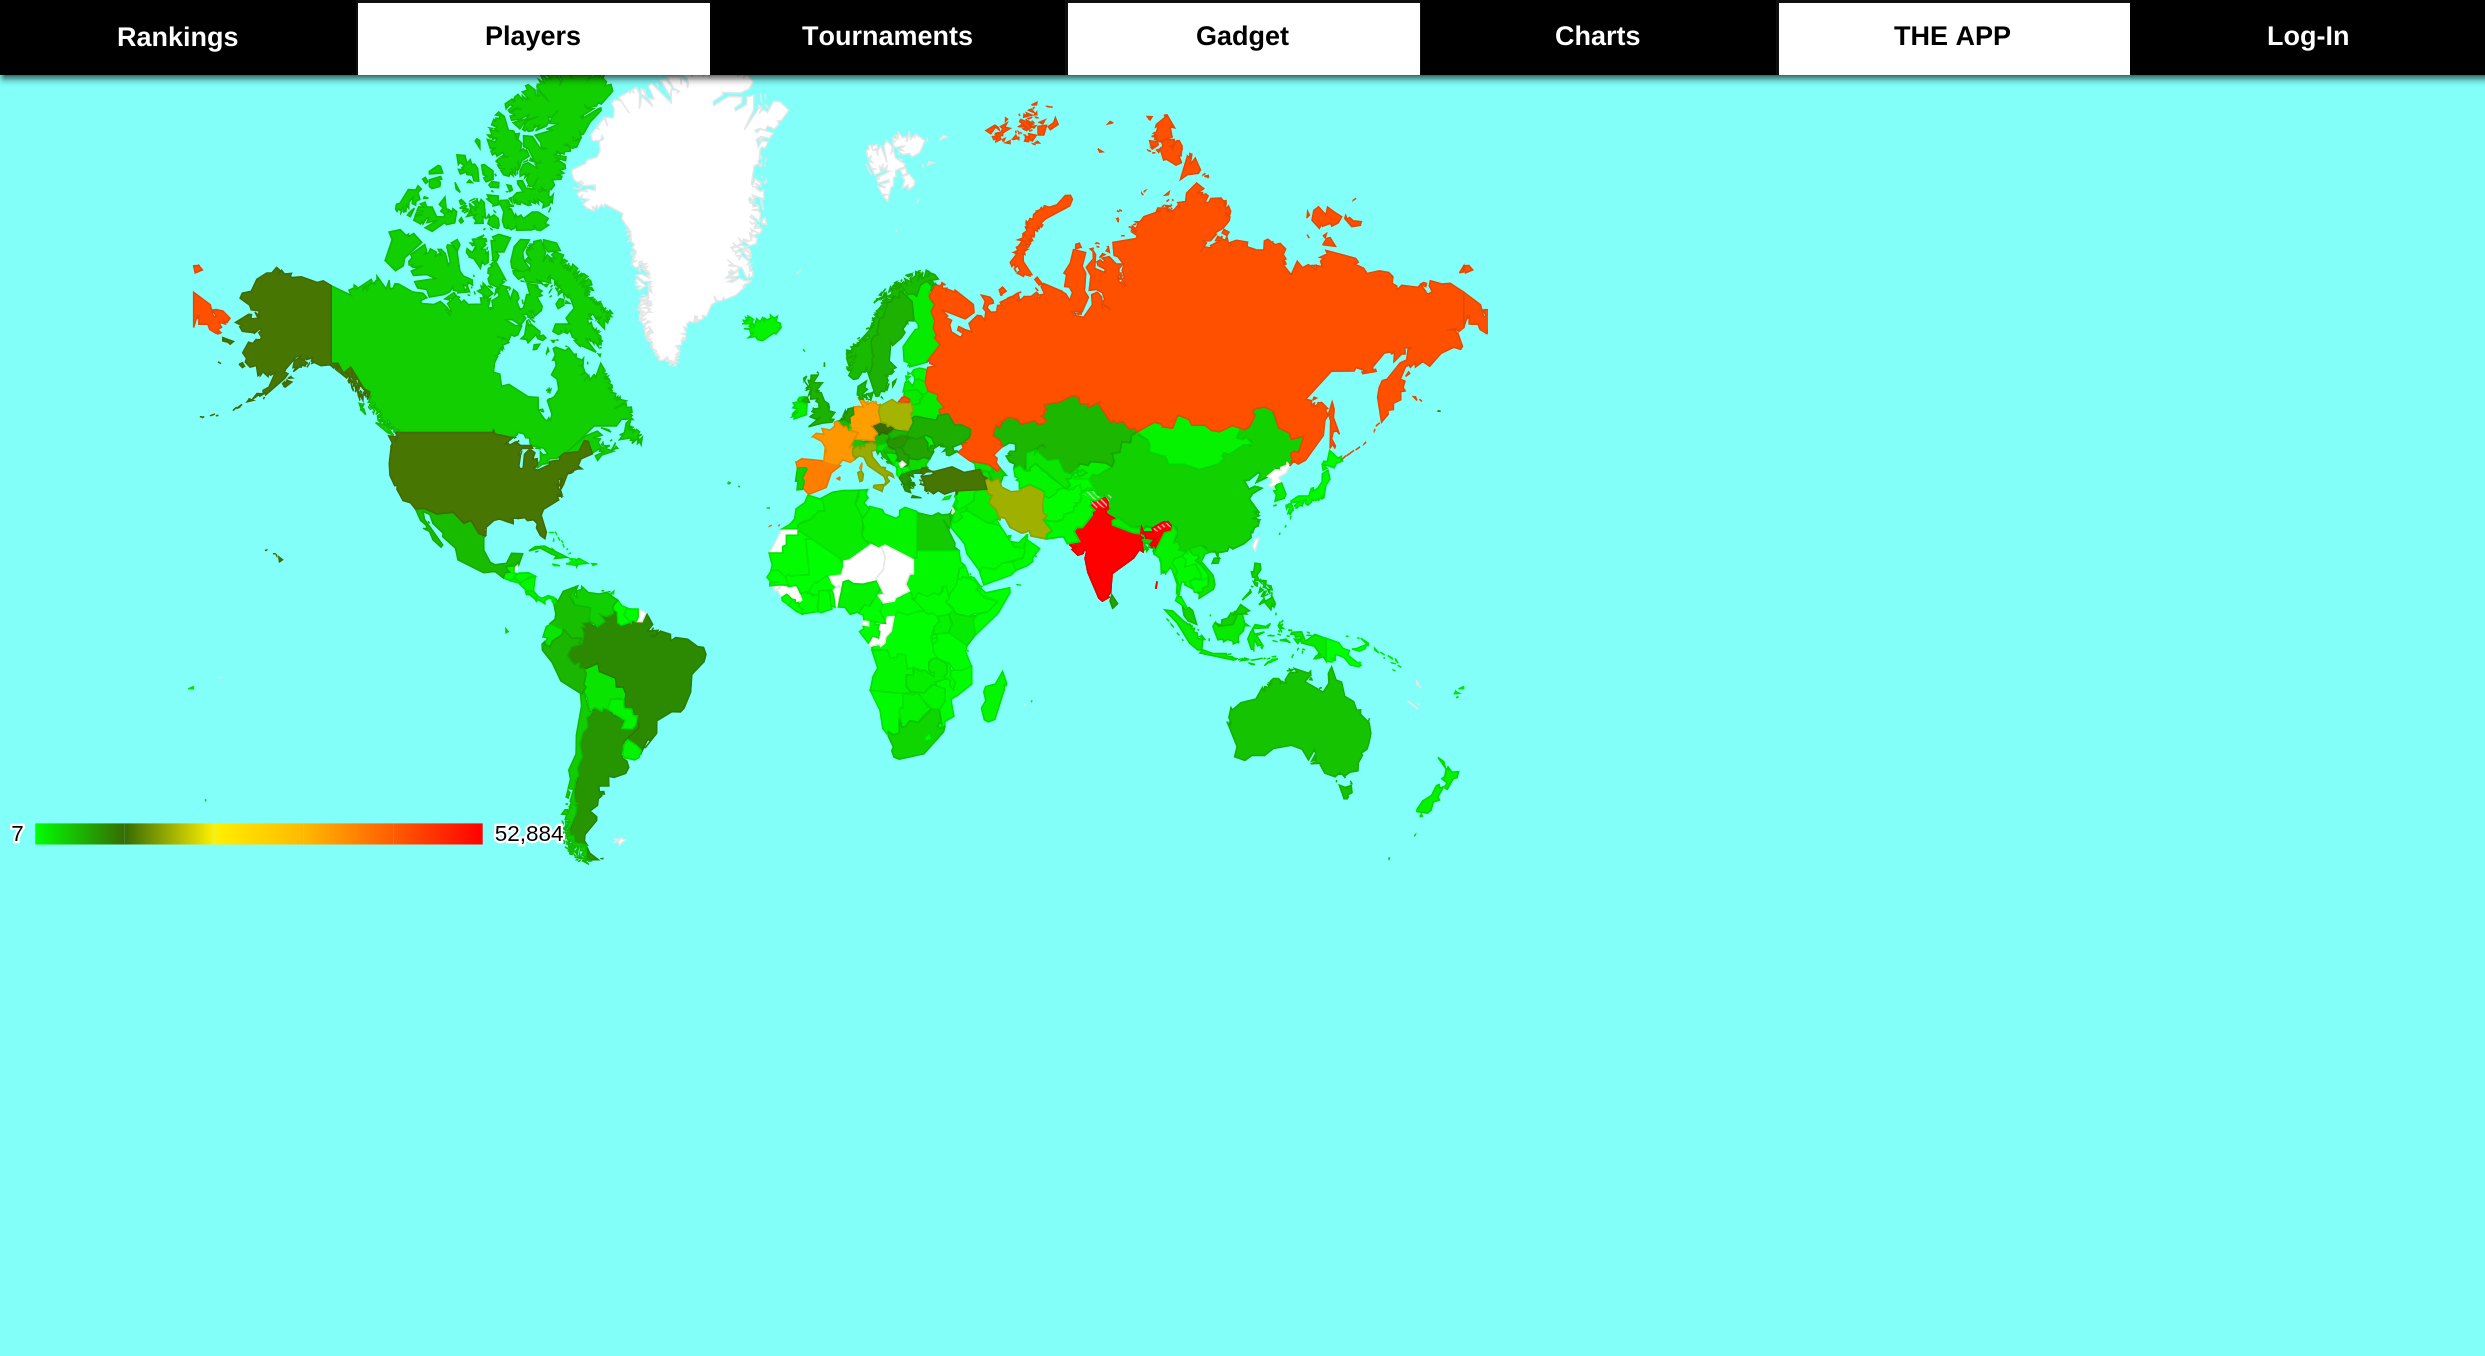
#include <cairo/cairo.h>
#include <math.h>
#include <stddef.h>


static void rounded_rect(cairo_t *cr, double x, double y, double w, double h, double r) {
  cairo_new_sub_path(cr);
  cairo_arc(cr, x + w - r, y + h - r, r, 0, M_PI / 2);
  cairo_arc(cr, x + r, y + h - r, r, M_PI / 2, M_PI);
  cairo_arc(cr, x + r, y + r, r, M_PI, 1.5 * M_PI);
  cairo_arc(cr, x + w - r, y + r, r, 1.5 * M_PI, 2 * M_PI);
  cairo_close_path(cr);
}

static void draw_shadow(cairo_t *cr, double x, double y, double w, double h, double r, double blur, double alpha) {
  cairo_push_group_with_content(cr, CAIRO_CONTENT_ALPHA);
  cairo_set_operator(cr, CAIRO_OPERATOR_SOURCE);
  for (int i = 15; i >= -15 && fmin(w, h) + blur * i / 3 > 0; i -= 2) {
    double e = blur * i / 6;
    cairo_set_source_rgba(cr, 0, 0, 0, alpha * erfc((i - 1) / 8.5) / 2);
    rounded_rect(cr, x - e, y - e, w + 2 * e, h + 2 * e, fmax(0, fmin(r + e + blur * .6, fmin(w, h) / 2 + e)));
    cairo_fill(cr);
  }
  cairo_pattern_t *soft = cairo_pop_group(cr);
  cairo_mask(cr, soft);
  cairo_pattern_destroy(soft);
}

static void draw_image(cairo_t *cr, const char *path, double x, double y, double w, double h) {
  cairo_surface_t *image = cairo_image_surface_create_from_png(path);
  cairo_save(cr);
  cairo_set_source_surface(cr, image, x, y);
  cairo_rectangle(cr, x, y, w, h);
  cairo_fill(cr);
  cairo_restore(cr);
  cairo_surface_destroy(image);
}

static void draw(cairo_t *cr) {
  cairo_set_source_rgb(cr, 130 / 255.0, 1, 249 / 255.0);
  cairo_paint(cr);
  draw_image(cr, "images/1.png", 0, 75, 1658, 790);
  cairo_set_source_rgb(cr, 0, 0, 0);
  draw_shadow(cr, 3, 3, 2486, 75, 0, 4, 0.75);
  cairo_set_source_rgb(cr, 0, 0, 0);
  cairo_rectangle(cr, 0, 0, 2485, 75);
  cairo_fill(cr);
  cairo_set_source_rgb(cr, 1, 1, 1);
  cairo_rectangle(cr, 358, 3, 352, 72);
  cairo_fill(cr);
  cairo_save(cr);
  cairo_rectangle(cr, 356, 0, 354, 75);
  cairo_clip(cr);
  cairo_set_source_rgb(cr, 15 / 255.0, 15 / 255.0, 15 / 255.0);
  cairo_set_fill_rule(cr, CAIRO_FILL_RULE_EVEN_ODD);
  cairo_new_path(cr);
  cairo_move_to(cr, 207, -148);
  cairo_line_to(cr, 858, -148);
  cairo_line_to(cr, 858, 224);
  cairo_line_to(cr, 207, 224);
  cairo_close_path(cr);
  cairo_move_to(cr, 358, 3);
  cairo_line_to(cr, 710, 3);
  cairo_line_to(cr, 710, 75);
  cairo_line_to(cr, 358, 75);
  cairo_close_path(cr);
  cairo_fill(cr);
  cairo_restore(cr);
  cairo_rectangle(cr, 1068, 3, 352, 72);
  cairo_fill(cr);
  cairo_save(cr);
  cairo_rectangle(cr, 1065, 0, 356, 75);
  cairo_clip(cr);
  cairo_set_source_rgb(cr, 15 / 255.0, 15 / 255.0, 15 / 255.0);
  cairo_set_fill_rule(cr, CAIRO_FILL_RULE_EVEN_ODD);
  cairo_new_path(cr);
  cairo_move_to(cr, 916, -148);
  cairo_line_to(cr, 1569, -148);
  cairo_line_to(cr, 1569, 224);
  cairo_line_to(cr, 916, 224);
  cairo_close_path(cr);
  cairo_move_to(cr, 1068, 3);
  cairo_line_to(cr, 1420, 3);
  cairo_line_to(cr, 1420, 75);
  cairo_line_to(cr, 1068, 75);
  cairo_close_path(cr);
  cairo_fill(cr);
  cairo_restore(cr);
  cairo_rectangle(cr, 1779, 3, 351, 72);
  cairo_fill(cr);
  cairo_save(cr);
  cairo_rectangle(cr, 1776, 0, 354, 75);
  cairo_clip(cr);
  cairo_set_source_rgb(cr, 15 / 255.0, 15 / 255.0, 15 / 255.0);
  cairo_set_fill_rule(cr, CAIRO_FILL_RULE_EVEN_ODD);
  cairo_new_path(cr);
  cairo_move_to(cr, 1628, -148);
  cairo_line_to(cr, 2278, -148);
  cairo_line_to(cr, 2278, 224);
  cairo_line_to(cr, 1628, 224);
  cairo_close_path(cr);
  cairo_move_to(cr, 1779, 3);
  cairo_line_to(cr, 2130, 3);
  cairo_line_to(cr, 2130, 75);
  cairo_line_to(cr, 1779, 75);
  cairo_close_path(cr);
  cairo_fill(cr);
  cairo_restore(cr);
  cairo_select_font_face(cr, "Liberation Sans", CAIRO_FONT_SLANT_NORMAL, CAIRO_FONT_WEIGHT_BOLD);
  cairo_set_font_size(cr, 27);
  cairo_move_to(cr, 117, 46);
  cairo_show_text(cr, "Rankings");
  cairo_set_source_rgb(cr, 0, 0, 0);
  cairo_move_to(cr, 485, 45);
  cairo_show_text(cr, "Players");
  cairo_set_source_rgb(cr, 1, 1, 1);
  cairo_move_to(cr, 802, 45);
  cairo_show_text(cr, "Tournaments");
  cairo_set_source_rgb(cr, 0, 0, 0);
  cairo_move_to(cr, 1196, 45);
  cairo_show_text(cr, "Gadget");
  cairo_set_source_rgb(cr, 1, 1, 1);
  cairo_move_to(cr, 1555, 45);
  cairo_show_text(cr, "Charts");
  cairo_set_source_rgb(cr, 0, 0, 0);
  cairo_move_to(cr, 1894, 45);
  cairo_show_text(cr, "THE APP");
  cairo_set_source_rgb(cr, 1, 1, 1);
  cairo_move_to(cr, 2267, 45);
  cairo_show_text(cr, "Log-In");
}

int main(void) {
  cairo_surface_t *surface = cairo_image_surface_create(CAIRO_FORMAT_RGB24, 2485, 1356);
  cairo_t *cr = cairo_create(surface);
  cairo_font_options_t *options = cairo_font_options_create();
  cairo_font_options_set_hint_metrics(options, CAIRO_HINT_METRICS_OFF);
  cairo_font_options_set_hint_style(options, CAIRO_HINT_STYLE_NONE);
  cairo_set_font_options(cr, options);
  cairo_set_miter_limit(cr, 4);
  draw(cr);
  cairo_surface_write_to_png(surface, "out.png");
  cairo_font_options_destroy(options);
  cairo_destroy(cr);
  cairo_surface_destroy(surface);
  return 0;
}
